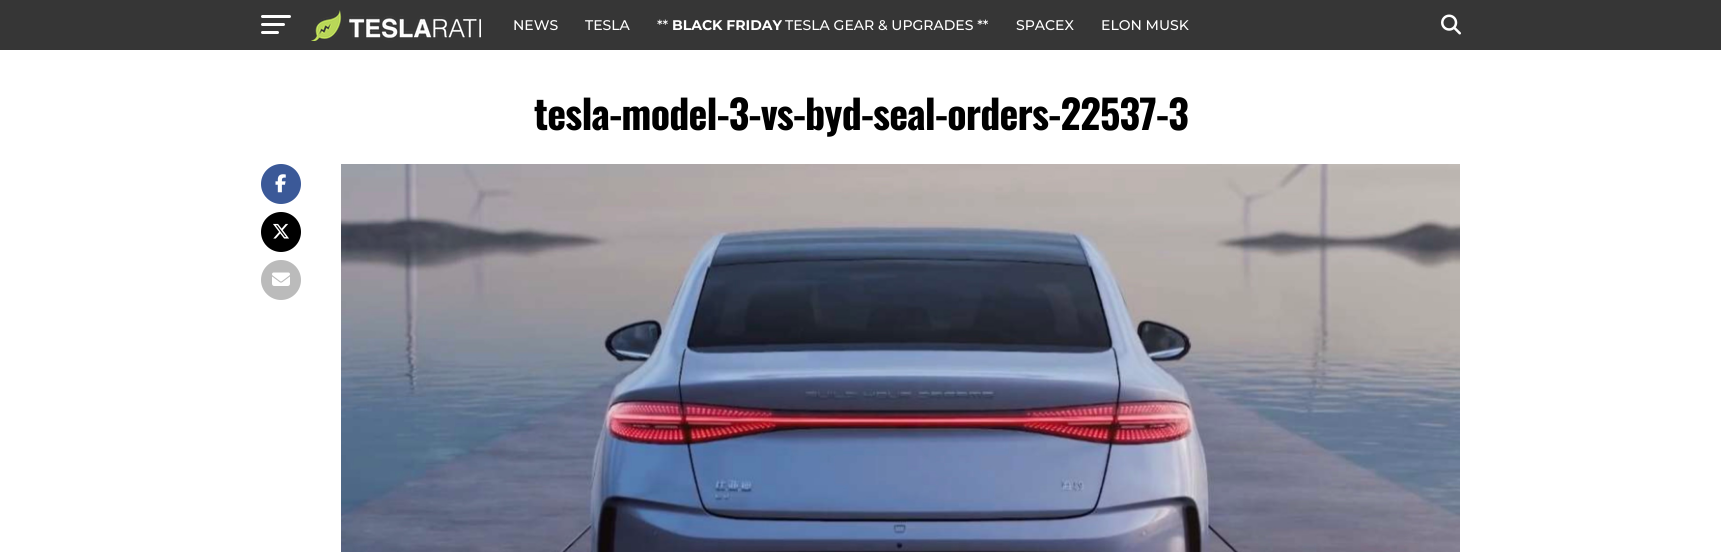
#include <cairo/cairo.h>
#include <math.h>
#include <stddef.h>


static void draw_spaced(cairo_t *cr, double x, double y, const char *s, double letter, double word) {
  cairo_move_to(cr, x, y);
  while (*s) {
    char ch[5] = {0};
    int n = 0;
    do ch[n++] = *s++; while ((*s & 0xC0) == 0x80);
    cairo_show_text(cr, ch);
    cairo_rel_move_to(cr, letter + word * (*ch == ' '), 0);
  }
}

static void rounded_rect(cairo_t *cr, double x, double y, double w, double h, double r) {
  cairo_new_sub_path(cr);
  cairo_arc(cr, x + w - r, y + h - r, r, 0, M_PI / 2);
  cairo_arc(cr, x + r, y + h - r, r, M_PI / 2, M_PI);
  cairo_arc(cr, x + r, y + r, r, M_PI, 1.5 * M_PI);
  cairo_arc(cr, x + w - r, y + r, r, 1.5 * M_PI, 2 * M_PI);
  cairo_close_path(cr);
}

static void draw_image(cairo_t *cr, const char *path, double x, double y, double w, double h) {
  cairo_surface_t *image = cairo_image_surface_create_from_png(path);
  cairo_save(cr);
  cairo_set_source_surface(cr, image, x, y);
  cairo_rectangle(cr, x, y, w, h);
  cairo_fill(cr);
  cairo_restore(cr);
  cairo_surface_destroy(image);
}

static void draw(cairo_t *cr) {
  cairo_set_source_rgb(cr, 1, 1, 1);
  cairo_paint(cr);
  cairo_set_source_rgb(cr, 54 / 255.0, 54 / 255.0, 54 / 255.0);
  cairo_rectangle(cr, 0, 0, 1721, 50);
  cairo_fill(cr);
  cairo_set_source_rgb(cr, 1, 1, 1);
  rounded_rect(cr, 261, 15, 30, 3, 1.5);
  cairo_fill(cr);
  rounded_rect(cr, 261, 23, 24, 3, 1.5);
  cairo_fill(cr);
  rounded_rect(cr, 261, 31, 18, 3, 1.5);
  cairo_fill(cr);
  draw_image(cr, "images/1.png", 311, 10, 170, 31);
  draw_image(cr, "images/2.png", 1441, 14, 20, 21);
  cairo_set_source_rgb(cr, 59 / 255.0, 89 / 255.0, 152 / 255.0);
  cairo_arc(cr, 281, 184, 20, 0, 2 * M_PI);
  cairo_fill(cr);
  draw_image(cr, "images/3.png", 275, 174, 11, 19);
  cairo_set_source_rgb(cr, 0, 0, 0);
  cairo_arc(cr, 281, 232, 20, 0, 2 * M_PI);
  cairo_fill(cr);
  draw_image(cr, "images/4.png", 273, 223, 16, 16);
  cairo_set_source_rgb(cr, 187 / 255.0, 187 / 255.0, 187 / 255.0);
  cairo_arc(cr, 281, 280, 20, 0, 2 * M_PI);
  cairo_fill(cr);
  draw_image(cr, "images/5.png", 272, 272, 18, 14);
  draw_image(cr, "images/6.png", 341, 164, 1119, 388);
  cairo_select_font_face(cr, "Montserrat Medium", CAIRO_FONT_SLANT_NORMAL, CAIRO_FONT_WEIGHT_NORMAL);
  cairo_set_font_size(cr, 14);
  cairo_set_source_rgb(cr, 1, 1, 1);
  cairo_move_to(cr, 513, 30);
  cairo_show_text(cr, "NEWS");
  cairo_move_to(cr, 585, 30);
  cairo_show_text(cr, "TESLA");
  cairo_move_to(cr, 657, 30);
  cairo_show_text(cr, "**");
  cairo_select_font_face(cr, "Montserrat", CAIRO_FONT_SLANT_NORMAL, CAIRO_FONT_WEIGHT_BOLD);
  cairo_move_to(cr, 672, 30);
  cairo_show_text(cr, "BLACK FRIDAY");
  cairo_select_font_face(cr, "Montserrat Medium", CAIRO_FONT_SLANT_NORMAL, CAIRO_FONT_WEIGHT_NORMAL);
  cairo_move_to(cr, 785, 30);
  cairo_show_text(cr, "TESLA GEAR & UPGRADES **");
  cairo_move_to(cr, 1016, 30);
  cairo_show_text(cr, "SPACEX");
  cairo_move_to(cr, 1101, 30);
  cairo_show_text(cr, "ELON MUSK");
  cairo_select_font_face(cr, "Oswald", CAIRO_FONT_SLANT_NORMAL, CAIRO_FONT_WEIGHT_BOLD);
  cairo_set_font_size(cr, 40);
  cairo_set_source_rgb(cr, 0, 0, 0);
  draw_spaced(cr, 534, 130, "tesla-model-3-vs-byd-seal-orders-22537-3", -0.8, 0);
}

int main(void) {
  cairo_surface_t *surface = cairo_image_surface_create(CAIRO_FORMAT_RGB24, 1721, 552);
  cairo_t *cr = cairo_create(surface);
  cairo_font_options_t *options = cairo_font_options_create();
  cairo_font_options_set_hint_metrics(options, CAIRO_HINT_METRICS_OFF);
  cairo_font_options_set_hint_style(options, CAIRO_HINT_STYLE_NONE);
  cairo_set_font_options(cr, options);
  cairo_set_miter_limit(cr, 4);
  draw(cr);
  cairo_surface_write_to_png(surface, "out.png");
  cairo_font_options_destroy(options);
  cairo_destroy(cr);
  cairo_surface_destroy(surface);
  return 0;
}
